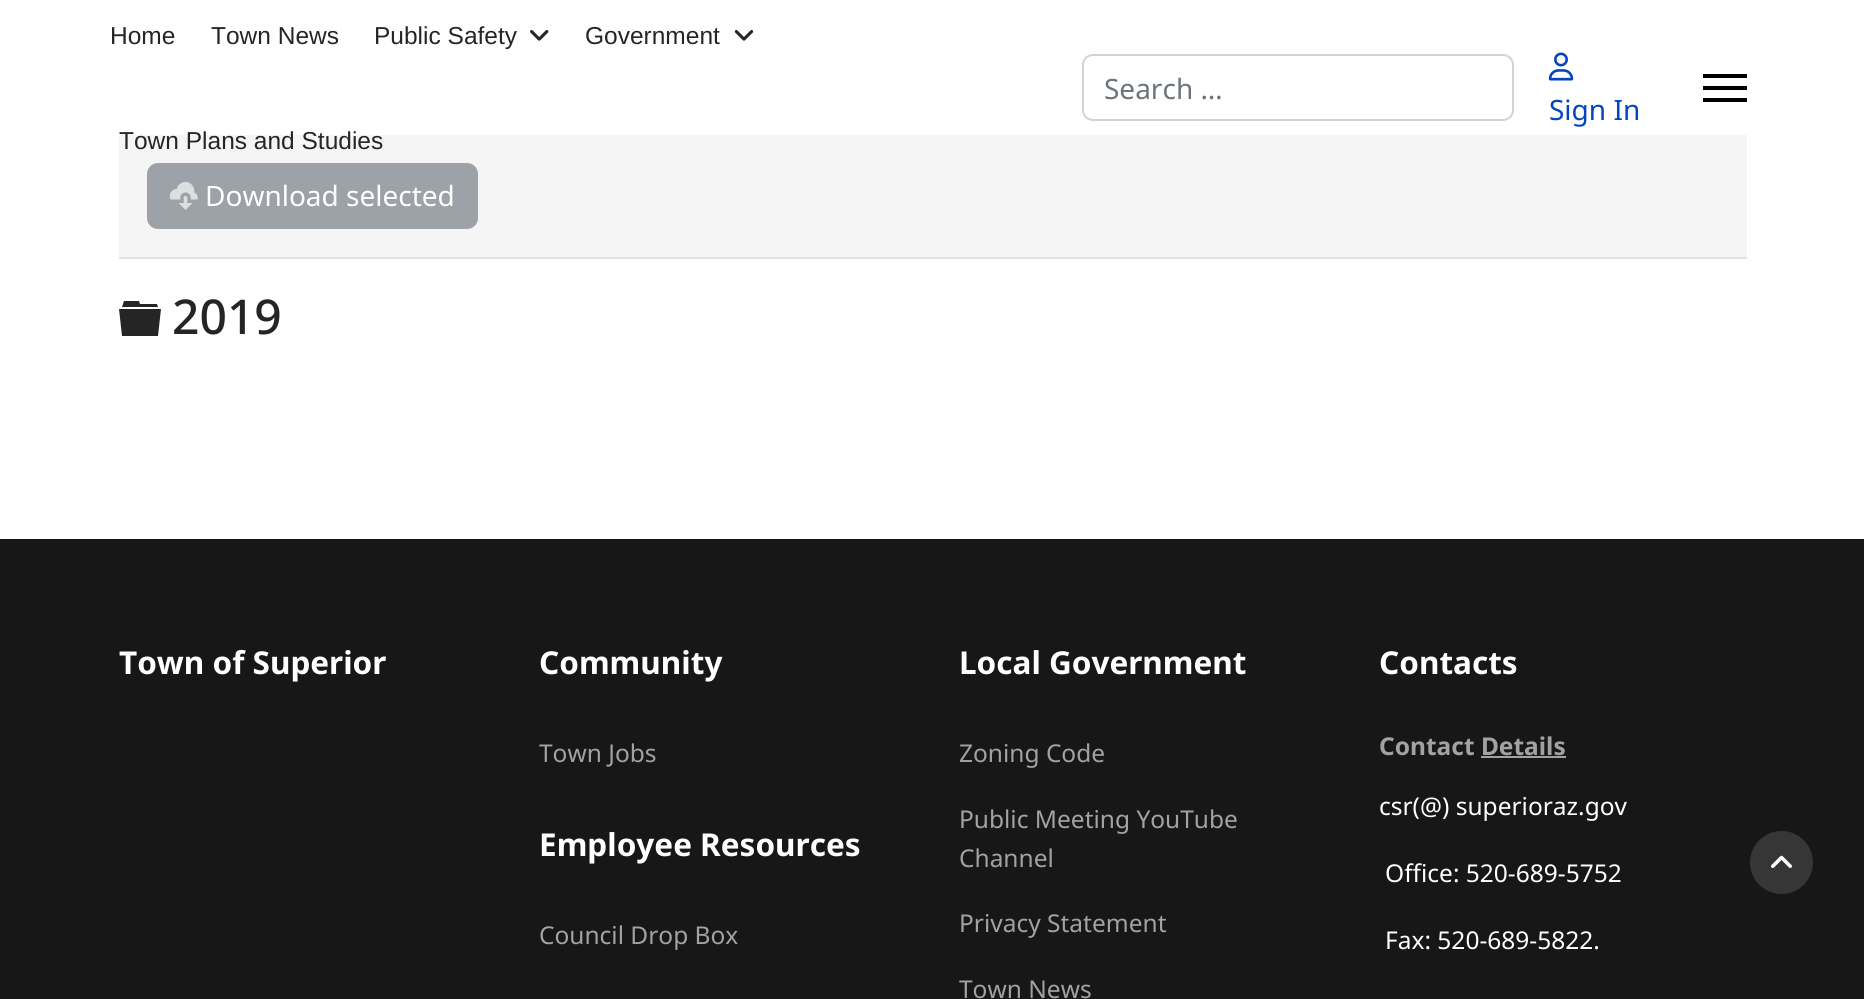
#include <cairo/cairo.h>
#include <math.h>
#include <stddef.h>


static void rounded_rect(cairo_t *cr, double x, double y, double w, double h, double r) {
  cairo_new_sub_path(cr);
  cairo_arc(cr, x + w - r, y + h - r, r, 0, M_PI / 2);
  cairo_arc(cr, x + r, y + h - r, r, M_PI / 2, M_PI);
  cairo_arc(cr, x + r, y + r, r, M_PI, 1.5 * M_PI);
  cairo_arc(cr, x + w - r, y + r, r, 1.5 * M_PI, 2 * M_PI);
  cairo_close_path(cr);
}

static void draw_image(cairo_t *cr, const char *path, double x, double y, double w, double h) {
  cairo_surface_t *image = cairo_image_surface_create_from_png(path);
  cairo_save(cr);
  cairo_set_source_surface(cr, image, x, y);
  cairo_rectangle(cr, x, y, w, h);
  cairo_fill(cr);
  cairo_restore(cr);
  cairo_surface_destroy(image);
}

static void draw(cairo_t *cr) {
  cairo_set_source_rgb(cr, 1, 1, 1);
  cairo_paint(cr);
  draw_image(cr, "images/1.png", 530, 30, 19, 11);
  draw_image(cr, "images/2.png", 734, 30, 20, 11);
  rounded_rect(cr, 1083, 55, 430, 65, 10);
  cairo_set_source_rgb(cr, 206 / 255.0, 212 / 255.0, 218 / 255.0);
  cairo_stroke(cr);
  draw_image(cr, "images/3.png", 1548, 52, 26, 29);
  cairo_set_source_rgb(cr, 0, 0, 0);
  cairo_rectangle(cr, 1703, 74, 44, 4);
  cairo_fill(cr);
  cairo_rectangle(cr, 1703, 86, 44, 4);
  cairo_fill(cr);
  cairo_rectangle(cr, 1703, 98, 44, 4);
  cairo_fill(cr);
  cairo_set_source_rgb(cr, 245 / 255.0, 245 / 255.0, 245 / 255.0);
  cairo_rectangle(cr, 119, 135, 1628, 122);
  cairo_fill(cr);
  cairo_set_source_rgb(cr, 225 / 255.0, 225 / 255.0, 225 / 255.0);
  cairo_rectangle(cr, 119, 257, 1628, 2);
  cairo_fill(cr);
  cairo_set_source_rgb(cr, 156 / 255.0, 162 / 255.0, 167 / 255.0);
  rounded_rect(cr, 148, 164, 329, 64, 10);
  cairo_fill_preserve(cr);
  cairo_stroke(cr);
  draw_image(cr, "images/4.png", 169, 182, 29, 28);
  cairo_set_source_rgb(cr, 37 / 255.0, 37 / 255.0, 37 / 255.0);
  cairo_new_path(cr);
  cairo_move_to(cr, 119, 309);
  cairo_line_to(cr, 161, 309);
  cairo_line_to(cr, 158, 336);
  cairo_line_to(cr, 122, 336);
  cairo_close_path(cr);
  cairo_move_to(cr, 157, 304);
  cairo_line_to(cr, 158, 307);
  cairo_line_to(cr, 122, 307);
  cairo_line_to(cr, 124, 301);
  cairo_line_to(cr, 139, 301);
  cairo_line_to(cr, 140, 304);
  cairo_close_path(cr);
  cairo_fill(cr);
  cairo_set_source_rgb(cr, 23 / 255.0, 23 / 255.0, 23 / 255.0);
  cairo_rectangle(cr, 0, 539, 1864, 460);
  cairo_fill(cr);
  cairo_set_source_rgb(cr, 162 / 255.0, 162 / 255.0, 162 / 255.0);
  cairo_rectangle(cr, 1481, 756, 85, 2);
  cairo_fill(cr);
  cairo_set_source_rgb(cr, 54 / 255.0, 54 / 255.0, 54 / 255.0);
  cairo_arc(cr, 1781.5, 862.5, 31.5, 0, 2 * M_PI);
  cairo_fill(cr);
  draw_image(cr, "images/5.png", 1771, 855, 21, 13);
  cairo_select_font_face(cr, "Liberation Sans", CAIRO_FONT_SLANT_NORMAL, CAIRO_FONT_WEIGHT_NORMAL);
  cairo_set_font_size(cr, 24.5);
  cairo_set_source_rgb(cr, 37 / 255.0, 37 / 255.0, 37 / 255.0);
  cairo_move_to(cr, 110, 44);
  cairo_show_text(cr, "Home");
  cairo_move_to(cr, 211, 44);
  cairo_show_text(cr, "Town News");
  cairo_move_to(cr, 374, 44);
  cairo_show_text(cr, "Public Safety");
  cairo_move_to(cr, 585, 44);
  cairo_show_text(cr, "Government");
  cairo_move_to(cr, 119, 149);
  cairo_show_text(cr, "Town Plans and Studies");
  cairo_select_font_face(cr, "Noto Sans", CAIRO_FONT_SLANT_NORMAL, CAIRO_FONT_WEIGHT_NORMAL);
  cairo_set_font_size(cr, 28);
  cairo_set_source_rgb(cr, 108 / 255.0, 117 / 255.0, 125 / 255.0);
  cairo_move_to(cr, 1104, 99);
  cairo_show_text(cr, "Search …");
  cairo_set_source_rgb(cr, 3 / 255.0, 69 / 255.0, 191 / 255.0);
  cairo_move_to(cr, 1549, 120);
  cairo_show_text(cr, "Sign In");
  cairo_set_source_rgb(cr, 1, 1, 1);
  cairo_move_to(cr, 205, 206);
  cairo_show_text(cr, "Download selected");
  cairo_select_font_face(cr, "Noto Sans Medium", CAIRO_FONT_SLANT_NORMAL, CAIRO_FONT_WEIGHT_NORMAL);
  cairo_set_font_size(cr, 48);
  cairo_set_source_rgb(cr, 37 / 255.0, 37 / 255.0, 37 / 255.0);
  cairo_move_to(cr, 172, 334);
  cairo_show_text(cr, "2019");
  cairo_select_font_face(cr, "Noto Sans", CAIRO_FONT_SLANT_NORMAL, CAIRO_FONT_WEIGHT_BOLD);
  cairo_set_font_size(cr, 31.5);
  cairo_set_source_rgb(cr, 1, 1, 1);
  cairo_move_to(cr, 119, 674);
  cairo_show_text(cr, "Town of Superior");
  cairo_move_to(cr, 539, 674);
  cairo_show_text(cr, "Community");
  cairo_select_font_face(cr, "Noto Sans", CAIRO_FONT_SLANT_NORMAL, CAIRO_FONT_WEIGHT_NORMAL);
  cairo_set_font_size(cr, 24.5);
  cairo_set_source_rgb(cr, 162 / 255.0, 162 / 255.0, 162 / 255.0);
  cairo_move_to(cr, 539, 762);
  cairo_show_text(cr, "Town Jobs");
  cairo_select_font_face(cr, "Noto Sans", CAIRO_FONT_SLANT_NORMAL, CAIRO_FONT_WEIGHT_BOLD);
  cairo_set_font_size(cr, 31.5);
  cairo_set_source_rgb(cr, 1, 1, 1);
  cairo_move_to(cr, 539, 856);
  cairo_show_text(cr, "Employee Resources");
  cairo_select_font_face(cr, "Noto Sans", CAIRO_FONT_SLANT_NORMAL, CAIRO_FONT_WEIGHT_NORMAL);
  cairo_set_font_size(cr, 24.5);
  cairo_set_source_rgb(cr, 162 / 255.0, 162 / 255.0, 162 / 255.0);
  cairo_move_to(cr, 539, 944);
  cairo_show_text(cr, "Council Drop Box");
  cairo_select_font_face(cr, "Noto Sans", CAIRO_FONT_SLANT_NORMAL, CAIRO_FONT_WEIGHT_BOLD);
  cairo_set_font_size(cr, 31.5);
  cairo_set_source_rgb(cr, 1, 1, 1);
  cairo_move_to(cr, 959, 674);
  cairo_show_text(cr, "Local Government");
  cairo_select_font_face(cr, "Noto Sans", CAIRO_FONT_SLANT_NORMAL, CAIRO_FONT_WEIGHT_NORMAL);
  cairo_set_font_size(cr, 24.5);
  cairo_set_source_rgb(cr, 162 / 255.0, 162 / 255.0, 162 / 255.0);
  cairo_move_to(cr, 959, 762);
  cairo_show_text(cr, "Zoning Code");
  cairo_move_to(cr, 959, 828);
  cairo_show_text(cr, "Public Meeting YouTube");
  cairo_move_to(cr, 959, 867);
  cairo_show_text(cr, "Channel");
  cairo_move_to(cr, 959, 932);
  cairo_show_text(cr, "Privacy Statement");
  cairo_move_to(cr, 959, 998);
  cairo_show_text(cr, "Town News");
  cairo_select_font_face(cr, "Noto Sans", CAIRO_FONT_SLANT_NORMAL, CAIRO_FONT_WEIGHT_BOLD);
  cairo_set_font_size(cr, 31.5);
  cairo_set_source_rgb(cr, 1, 1, 1);
  cairo_move_to(cr, 1379, 674);
  cairo_show_text(cr, "Contacts");
  cairo_set_font_size(cr, 24.5);
  cairo_set_source_rgb(cr, 162 / 255.0, 162 / 255.0, 162 / 255.0);
  cairo_move_to(cr, 1379, 755);
  cairo_show_text(cr, "Contact Details");
  cairo_select_font_face(cr, "Noto Sans", CAIRO_FONT_SLANT_NORMAL, CAIRO_FONT_WEIGHT_NORMAL);
  cairo_set_source_rgb(cr, 1, 1, 1);
  cairo_move_to(cr, 1379, 815);
  cairo_show_text(cr, "csr(@) superioraz.gov");
  cairo_move_to(cr, 1385, 882);
  cairo_show_text(cr, "Office: 520-689-5752");
  cairo_move_to(cr, 1385, 949);
  cairo_show_text(cr, "Fax: 520-689-5822.");
}

int main(void) {
  cairo_surface_t *surface = cairo_image_surface_create(CAIRO_FORMAT_RGB24, 1864, 999);
  cairo_t *cr = cairo_create(surface);
  cairo_font_options_t *options = cairo_font_options_create();
  cairo_font_options_set_hint_metrics(options, CAIRO_HINT_METRICS_OFF);
  cairo_font_options_set_hint_style(options, CAIRO_HINT_STYLE_NONE);
  cairo_set_font_options(cr, options);
  cairo_set_miter_limit(cr, 4);
  draw(cr);
  cairo_surface_write_to_png(surface, "out.png");
  cairo_font_options_destroy(options);
  cairo_destroy(cr);
  cairo_surface_destroy(surface);
  return 0;
}
